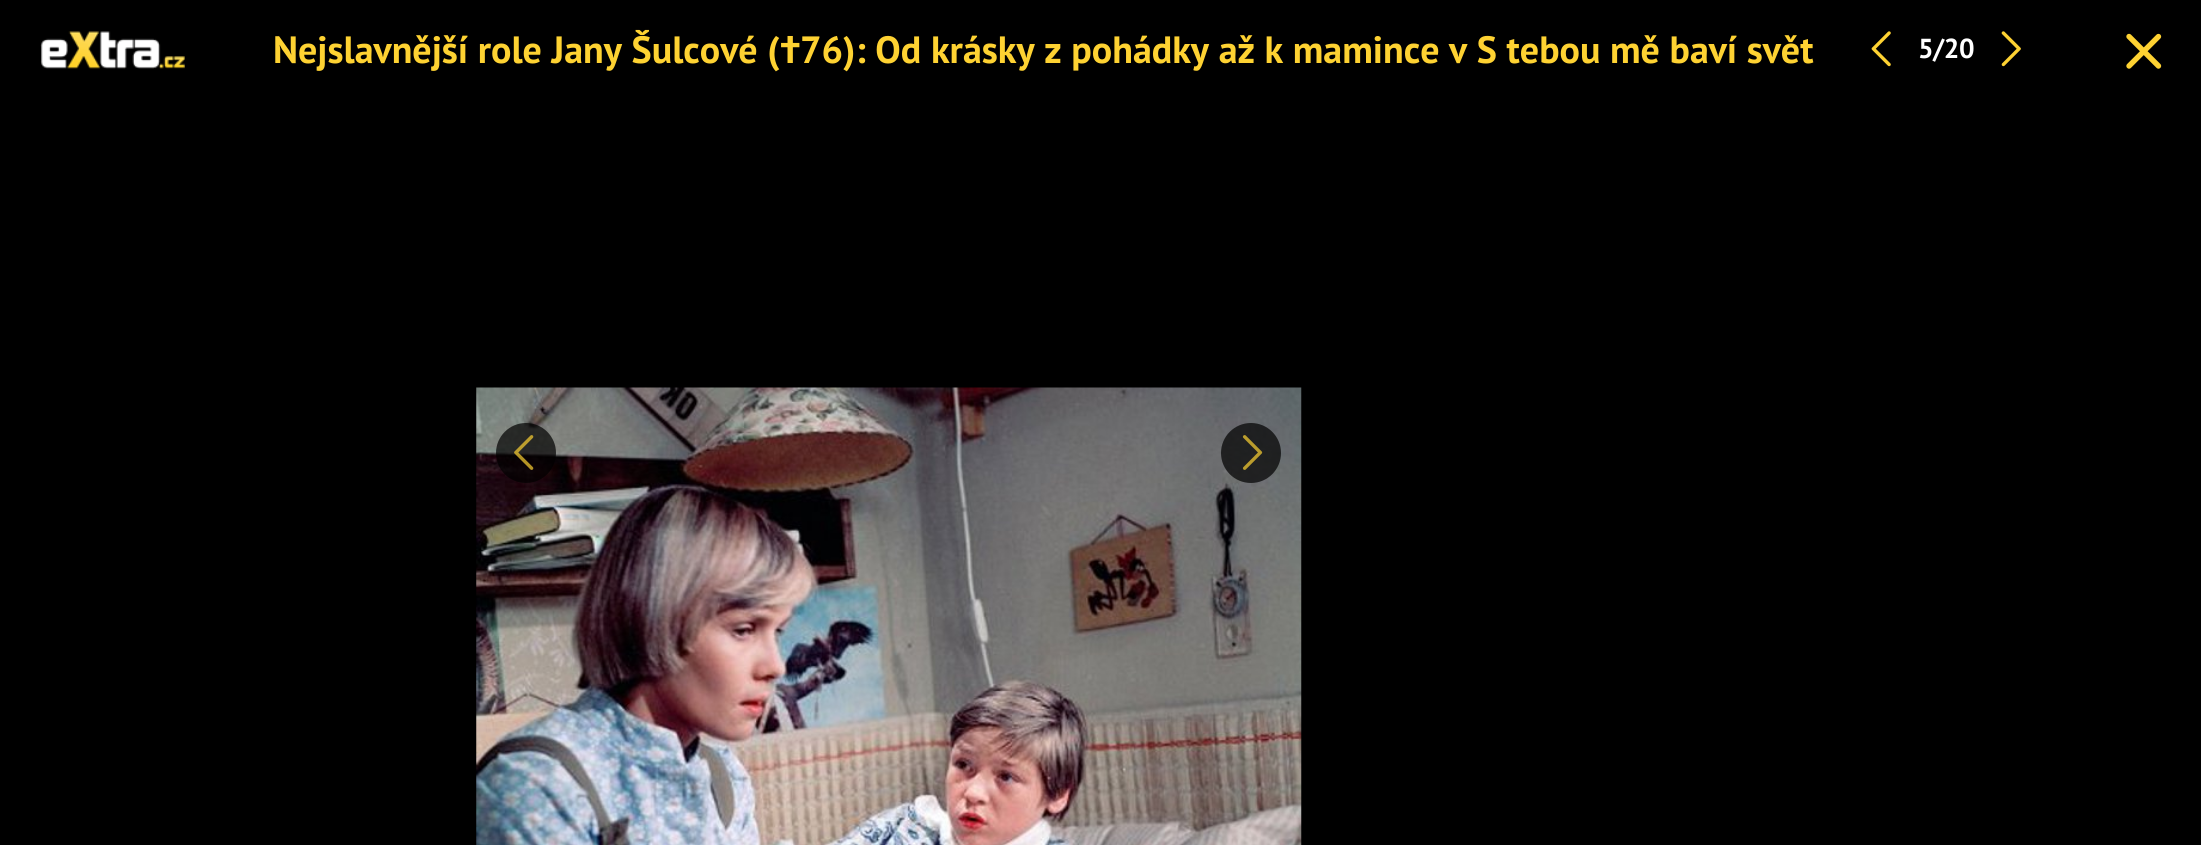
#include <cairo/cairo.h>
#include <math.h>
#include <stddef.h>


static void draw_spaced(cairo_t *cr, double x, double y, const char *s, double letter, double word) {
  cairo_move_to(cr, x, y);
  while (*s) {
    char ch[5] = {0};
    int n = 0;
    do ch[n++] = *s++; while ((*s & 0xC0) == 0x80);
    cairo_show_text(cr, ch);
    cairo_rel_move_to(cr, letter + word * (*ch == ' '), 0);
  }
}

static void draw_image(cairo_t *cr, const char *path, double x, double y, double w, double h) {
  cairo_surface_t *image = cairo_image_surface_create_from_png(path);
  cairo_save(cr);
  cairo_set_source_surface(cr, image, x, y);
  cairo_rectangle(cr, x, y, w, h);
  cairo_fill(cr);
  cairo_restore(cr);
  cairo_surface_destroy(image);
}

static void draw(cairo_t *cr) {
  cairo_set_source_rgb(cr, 0, 0, 0);
  cairo_paint(cr);
  draw_image(cr, "images/1.png", 40, 31, 145, 38);
  draw_image(cr, "images/2.png", 1871, 31, 20, 36);
  draw_image(cr, "images/3.png", 2001, 31, 20, 36);
  draw_image(cr, "images/4.png", 2126, 33, 36, 36);
  draw_image(cr, "images/5.png", 476, 387, 826, 458);
  cairo_set_source_rgba(cr, 0, 0, 0, 0.7);
  cairo_arc(cr, 526, 453, 30, 0, 2 * M_PI);
  cairo_fill(cr);
  draw_image(cr, "images/6.png", 514, 435, 20, 35);
  cairo_arc(cr, 1251, 453, 30, 0, 2 * M_PI);
  cairo_fill(cr);
  draw_image(cr, "images/7.png", 1242, 435, 21, 35);
  cairo_select_font_face(cr, "PT Sans", CAIRO_FONT_SLANT_NORMAL, CAIRO_FONT_WEIGHT_BOLD);
  cairo_set_font_size(cr, 38);
  cairo_set_source_rgb(cr, 254 / 255.0, 210 / 255.0, 50 / 255.0);
  cairo_move_to(cr, 273, 63);
  cairo_show_text(cr, "Nejslavnější role Jany Šulcové (");
  cairo_select_font_face(cr, "Roboto", CAIRO_FONT_SLANT_NORMAL, CAIRO_FONT_WEIGHT_BOLD);
  cairo_move_to(cr, 780, 63);
  cairo_show_text(cr, "†");
  cairo_select_font_face(cr, "PT Sans", CAIRO_FONT_SLANT_NORMAL, CAIRO_FONT_WEIGHT_BOLD);
  cairo_move_to(cr, 800, 63);
  cairo_show_text(cr, "76): Od krásky z pohádky až k mamince v S tebou mě baví svět");
  cairo_set_font_size(cr, 27.5);
  cairo_set_source_rgb(cr, 1, 1, 1);
  draw_spaced(cr, 1918, 58, "5/20", -0.5, 0);
}

int main(void) {
  cairo_surface_t *surface = cairo_image_surface_create(CAIRO_FORMAT_RGB24, 2201, 845);
  cairo_t *cr = cairo_create(surface);
  cairo_font_options_t *options = cairo_font_options_create();
  cairo_font_options_set_hint_metrics(options, CAIRO_HINT_METRICS_OFF);
  cairo_font_options_set_hint_style(options, CAIRO_HINT_STYLE_NONE);
  cairo_set_font_options(cr, options);
  cairo_set_miter_limit(cr, 4);
  draw(cr);
  cairo_surface_write_to_png(surface, "out.png");
  cairo_font_options_destroy(options);
  cairo_destroy(cr);
  cairo_surface_destroy(surface);
  return 0;
}
